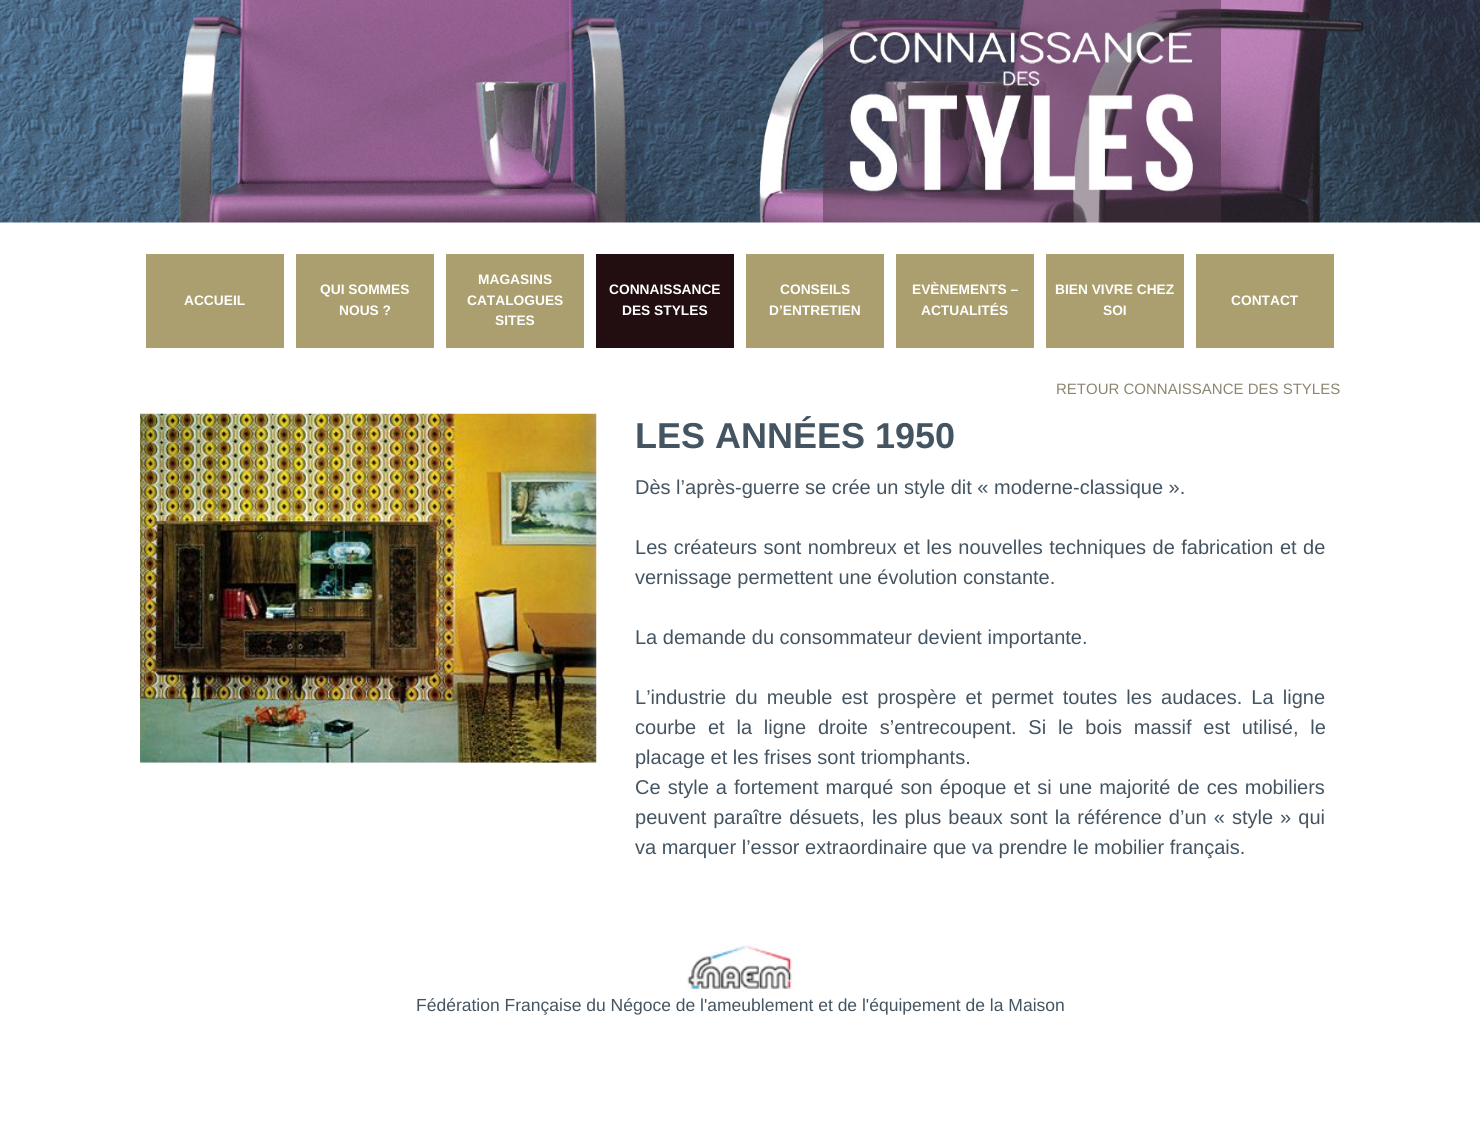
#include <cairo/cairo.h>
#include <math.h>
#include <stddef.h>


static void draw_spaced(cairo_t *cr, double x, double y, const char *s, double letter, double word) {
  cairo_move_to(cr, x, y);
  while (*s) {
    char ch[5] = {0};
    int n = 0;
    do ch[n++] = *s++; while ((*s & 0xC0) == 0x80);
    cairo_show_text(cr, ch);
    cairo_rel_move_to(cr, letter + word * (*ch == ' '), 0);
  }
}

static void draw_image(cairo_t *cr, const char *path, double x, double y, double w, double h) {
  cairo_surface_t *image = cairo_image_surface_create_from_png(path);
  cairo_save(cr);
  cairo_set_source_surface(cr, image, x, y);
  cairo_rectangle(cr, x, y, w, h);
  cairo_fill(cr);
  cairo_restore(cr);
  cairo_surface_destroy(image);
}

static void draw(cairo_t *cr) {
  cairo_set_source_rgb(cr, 1, 1, 1);
  cairo_paint(cr);
  draw_image(cr, "images/1.png", 0, 0, 1480, 223);
  cairo_set_source_rgb(cr, 171 / 255.0, 159 / 255.0, 111 / 255.0);
  cairo_rectangle(cr, 146, 254, 138, 94);
  cairo_fill(cr);
  cairo_rectangle(cr, 296, 254, 138, 94);
  cairo_fill(cr);
  cairo_rectangle(cr, 446, 254, 138, 94);
  cairo_fill(cr);
  cairo_set_source_rgb(cr, 34 / 255.0, 14 / 255.0, 16 / 255.0);
  cairo_rectangle(cr, 596, 254, 138, 94);
  cairo_fill(cr);
  cairo_set_source_rgb(cr, 171 / 255.0, 159 / 255.0, 111 / 255.0);
  cairo_rectangle(cr, 746, 254, 138, 94);
  cairo_fill(cr);
  cairo_rectangle(cr, 896, 254, 138, 94);
  cairo_fill(cr);
  cairo_rectangle(cr, 1046, 254, 138, 94);
  cairo_fill(cr);
  cairo_rectangle(cr, 1196, 254, 138, 94);
  cairo_fill(cr);
  draw_image(cr, "images/2.png", 140, 413, 457, 351);
  draw_image(cr, "images/3.png", 685, 944, 110, 49);
  cairo_select_font_face(cr, "Liberation Sans", CAIRO_FONT_SLANT_NORMAL, CAIRO_FONT_WEIGHT_BOLD);
  cairo_set_font_size(cr, 13.75);
  cairo_set_source_rgb(cr, 1, 1, 1);
  cairo_move_to(cr, 184, 305);
  cairo_show_text(cr, "ACCUEIL");
  cairo_move_to(cr, 320, 294);
  cairo_show_text(cr, "QUI SOMMES");
  cairo_move_to(cr, 339, 315);
  cairo_show_text(cr, "NOUS ?");
  cairo_move_to(cr, 478, 284);
  cairo_show_text(cr, "MAGASINS");
  cairo_move_to(cr, 467, 305);
  cairo_show_text(cr, "CATALOGUES");
  cairo_move_to(cr, 495, 325);
  cairo_show_text(cr, "SITES");
  cairo_move_to(cr, 609, 294);
  cairo_show_text(cr, "CONNAISSANCE");
  cairo_move_to(cr, 622, 315);
  cairo_show_text(cr, "DES STYLES");
  cairo_move_to(cr, 780, 294);
  cairo_show_text(cr, "CONSEILS");
  cairo_move_to(cr, 769, 315);
  cairo_show_text(cr, "D’ENTRETIEN");
  cairo_move_to(cr, 912, 294);
  cairo_show_text(cr, "EVÈNEMENTS –");
  cairo_move_to(cr, 921, 315);
  cairo_show_text(cr, "ACTUALITÉS");
  cairo_move_to(cr, 1055, 294);
  cairo_show_text(cr, "BIEN VIVRE CHEZ");
  cairo_move_to(cr, 1103, 315);
  cairo_show_text(cr, "SOI");
  cairo_move_to(cr, 1231, 305);
  cairo_show_text(cr, "CONTACT");
  cairo_select_font_face(cr, "Liberation Sans", CAIRO_FONT_SLANT_NORMAL, CAIRO_FONT_WEIGHT_NORMAL);
  cairo_set_font_size(cr, 15);
  cairo_set_source_rgb(cr, 139 / 255.0, 133 / 255.0, 113 / 255.0);
  cairo_move_to(cr, 1056, 394);
  cairo_show_text(cr, "RETOUR CONNAISSANCE DES STYLES");
  cairo_select_font_face(cr, "Liberation Sans", CAIRO_FONT_SLANT_NORMAL, CAIRO_FONT_WEIGHT_BOLD);
  cairo_set_font_size(cr, 36);
  cairo_set_source_rgb(cr, 68 / 255.0, 84 / 255.0, 97 / 255.0);
  cairo_move_to(cr, 635, 448);
  cairo_show_text(cr, "LES ANNÉES 1950");
  cairo_select_font_face(cr, "Liberation Sans", CAIRO_FONT_SLANT_NORMAL, CAIRO_FONT_WEIGHT_NORMAL);
  cairo_set_font_size(cr, 20);
  cairo_move_to(cr, 635, 494);
  cairo_show_text(cr, "Dès l’après-guerre se crée un style dit « moderne-classique ».");
  draw_spaced(cr, 635, 554, "Les créateurs sont nombreux et les nouvelles techniques de fabrication et de", 0, 0.9);
  cairo_move_to(cr, 635, 584);
  cairo_show_text(cr, "vernissage permettent une évolution constante.");
  cairo_move_to(cr, 635, 644);
  cairo_show_text(cr, "La demande du consommateur devient importante.");
  draw_spaced(cr, 635, 704, "L’industrie du meuble est prospère et permet toutes les audaces. La ligne", 0, 3.6);
  draw_spaced(cr, 635, 734, "courbe et la ligne droite s’entrecoupent. Si le bois massif est utilisé, le", 0, 6.25);
  cairo_move_to(cr, 635, 764);
  cairo_show_text(cr, "placage et les frises sont triomphants.");
  draw_spaced(cr, 635, 794, "Ce style a fortement marqué son époque et si une majorité de ces mobiliers", 0, 1.5);
  draw_spaced(cr, 635, 824, "peuvent paraître désuets, les plus beaux sont la référence d’un « style » qui", 0, 1.5);
  cairo_move_to(cr, 635, 854);
  cairo_show_text(cr, "va marquer l’essor extraordinaire que va prendre le mobilier français.");
  cairo_set_font_size(cr, 17.5);
  cairo_move_to(cr, 416, 1011);
  cairo_show_text(cr, "Fédération Française du Négoce de l'ameublement et de l'équipement de la Maison");
}

int main(void) {
  cairo_surface_t *surface = cairo_image_surface_create(CAIRO_FORMAT_RGB24, 1480, 1123);
  cairo_t *cr = cairo_create(surface);
  cairo_font_options_t *options = cairo_font_options_create();
  cairo_font_options_set_hint_metrics(options, CAIRO_HINT_METRICS_OFF);
  cairo_font_options_set_hint_style(options, CAIRO_HINT_STYLE_NONE);
  cairo_set_font_options(cr, options);
  cairo_set_miter_limit(cr, 4);
  draw(cr);
  cairo_surface_write_to_png(surface, "out.png");
  cairo_font_options_destroy(options);
  cairo_destroy(cr);
  cairo_surface_destroy(surface);
  return 0;
}
